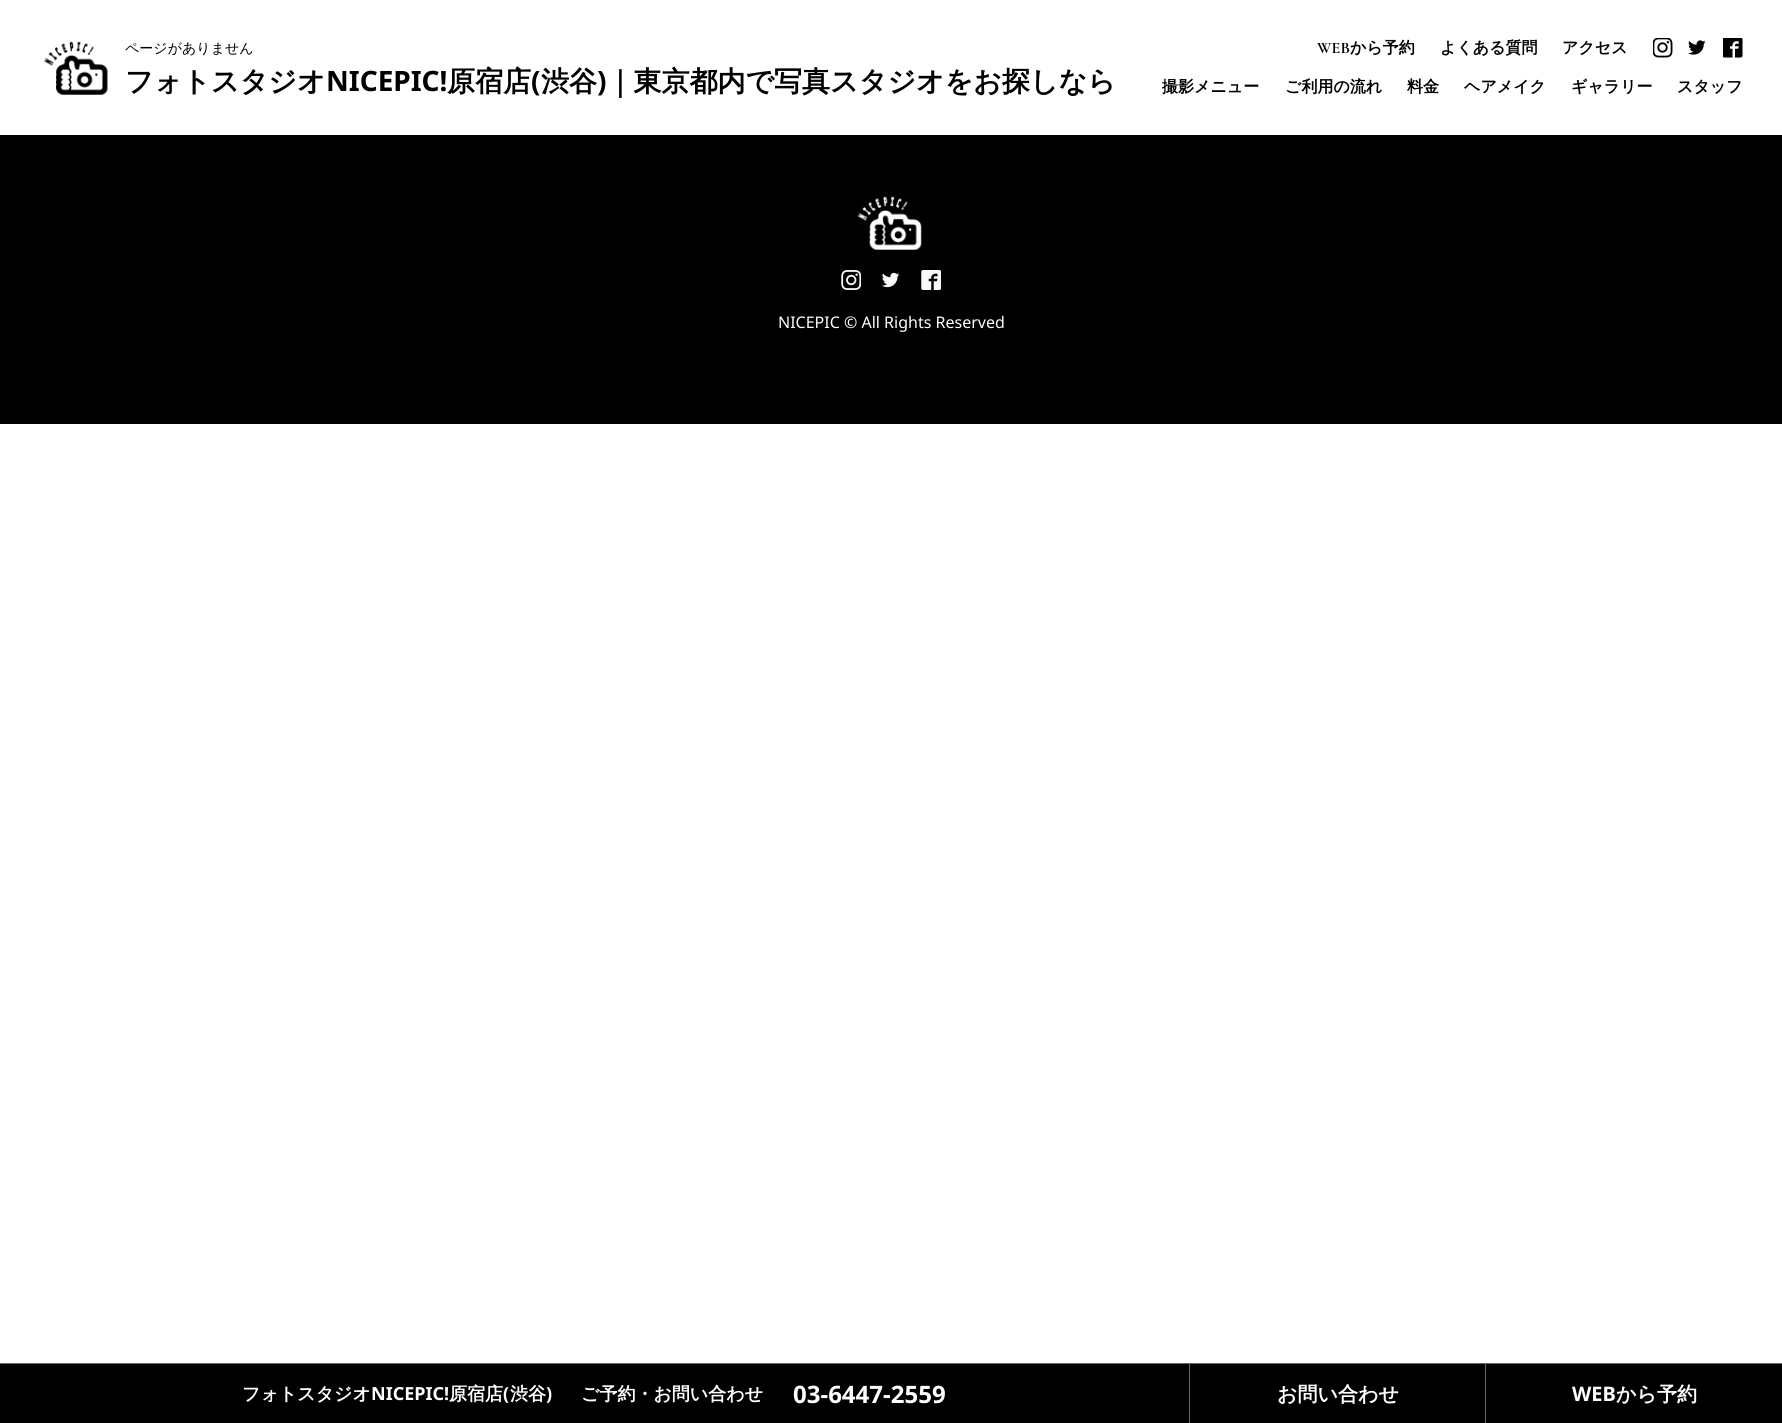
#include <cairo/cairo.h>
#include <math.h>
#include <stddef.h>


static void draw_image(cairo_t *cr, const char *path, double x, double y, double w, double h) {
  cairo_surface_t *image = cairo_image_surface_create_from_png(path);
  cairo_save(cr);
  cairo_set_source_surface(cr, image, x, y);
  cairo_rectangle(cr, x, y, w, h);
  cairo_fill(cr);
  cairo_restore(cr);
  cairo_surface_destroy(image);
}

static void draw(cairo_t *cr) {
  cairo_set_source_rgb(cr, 1, 1, 1);
  cairo_paint(cr);
  draw_image(cr, "images/1.png", 43, 41, 65, 54);
  draw_image(cr, "images/2.png", 1653, 38, 20, 20);
  draw_image(cr, "images/3.png", 1688, 40, 18, 15);
  draw_image(cr, "images/4.png", 1723, 38, 20, 20);
  cairo_set_source_rgb(cr, 102 / 255.0, 102 / 255.0, 102 / 255.0);
  cairo_rectangle(cr, 0, 1363, 1782, 1);
  cairo_fill(cr);
  cairo_set_source_rgb(cr, 0, 0, 0);
  cairo_rectangle(cr, 0, 1364, 1189, 59);
  cairo_fill(cr);
  cairo_set_source_rgb(cr, 102 / 255.0, 102 / 255.0, 102 / 255.0);
  cairo_rectangle(cr, 1189, 1364, 1, 59);
  cairo_fill(cr);
  cairo_set_source_rgb(cr, 0, 0, 0);
  cairo_rectangle(cr, 1190, 1364, 295, 59);
  cairo_fill(cr);
  cairo_set_source_rgb(cr, 102 / 255.0, 102 / 255.0, 102 / 255.0);
  cairo_rectangle(cr, 1485, 1364, 1, 59);
  cairo_fill(cr);
  cairo_set_source_rgb(cr, 0, 0, 0);
  cairo_rectangle(cr, 1486, 1364, 296, 59);
  cairo_fill(cr);
  cairo_rectangle(cr, 0, 135, 1782, 289);
  cairo_fill(cr);
  draw_image(cr, "images/5.png", 857, 196, 65, 54);
  draw_image(cr, "images/6.png", 841, 270, 20, 20);
  draw_image(cr, "images/7.png", 882, 272, 18, 16);
  draw_image(cr, "images/8.png", 921, 270, 20, 20);
  cairo_select_font_face(cr, "WenQuanYi Zen Hei Medium", CAIRO_FONT_SLANT_NORMAL, CAIRO_FONT_WEIGHT_NORMAL);
  cairo_set_font_size(cr, 14);
  cairo_move_to(cr, 125, 53);
  cairo_show_text(cr, "ページがありません");
  cairo_select_font_face(cr, "Cormorant Garamond", CAIRO_FONT_SLANT_NORMAL, CAIRO_FONT_WEIGHT_BOLD);
  cairo_set_font_size(cr, 16);
  cairo_move_to(cr, 1317, 53);
  cairo_show_text(cr, "WEB");
  cairo_select_font_face(cr, "WenQuanYi Zen Hei", CAIRO_FONT_SLANT_NORMAL, CAIRO_FONT_WEIGHT_BOLD);
  cairo_move_to(cr, 1350, 53);
  cairo_show_text(cr, "から予約");
  cairo_move_to(cr, 1440, 53);
  cairo_show_text(cr, "よくある質問");
  cairo_move_to(cr, 1562, 53);
  cairo_show_text(cr, "アクセス");
  cairo_set_font_size(cr, 28);
  cairo_move_to(cr, 125, 91);
  cairo_show_text(cr, "フォトスタジオ");
  cairo_select_font_face(cr, "Noto Sans", CAIRO_FONT_SLANT_NORMAL, CAIRO_FONT_WEIGHT_BOLD);
  cairo_move_to(cr, 326, 91);
  cairo_show_text(cr, "NICEPIC!");
  cairo_select_font_face(cr, "WenQuanYi Zen Hei", CAIRO_FONT_SLANT_NORMAL, CAIRO_FONT_WEIGHT_BOLD);
  cairo_move_to(cr, 447, 91);
  cairo_show_text(cr, "原宿店");
  cairo_select_font_face(cr, "Noto Sans", CAIRO_FONT_SLANT_NORMAL, CAIRO_FONT_WEIGHT_BOLD);
  cairo_move_to(cr, 531, 91);
  cairo_show_text(cr, "(");
  cairo_select_font_face(cr, "WenQuanYi Zen Hei", CAIRO_FONT_SLANT_NORMAL, CAIRO_FONT_WEIGHT_BOLD);
  cairo_move_to(cr, 541, 91);
  cairo_show_text(cr, "渋谷");
  cairo_select_font_face(cr, "Noto Sans", CAIRO_FONT_SLANT_NORMAL, CAIRO_FONT_WEIGHT_BOLD);
  cairo_move_to(cr, 597, 91);
  cairo_show_text(cr, ")");
  cairo_select_font_face(cr, "WenQuanYi Zen Hei", CAIRO_FONT_SLANT_NORMAL, CAIRO_FONT_WEIGHT_BOLD);
  cairo_move_to(cr, 606, 91);
  cairo_show_text(cr, "｜東京都内で写真スタジオをお探しなら");
  cairo_set_font_size(cr, 16);
  cairo_move_to(cr, 1162, 92);
  cairo_show_text(cr, "撮影メニュー");
  cairo_move_to(cr, 1285, 92);
  cairo_show_text(cr, "ご利用の流れ");
  cairo_move_to(cr, 1407, 92);
  cairo_show_text(cr, "料金");
  cairo_move_to(cr, 1464, 92);
  cairo_show_text(cr, "ヘアメイク");
  cairo_move_to(cr, 1571, 92);
  cairo_show_text(cr, "ギャラリー");
  cairo_move_to(cr, 1677, 92);
  cairo_show_text(cr, "スタッフ");
  cairo_set_font_size(cr, 18);
  cairo_set_source_rgb(cr, 1, 1, 1);
  cairo_move_to(cr, 242, 1400);
  cairo_show_text(cr, "フォトスタジオ");
  cairo_select_font_face(cr, "Noto Sans", CAIRO_FONT_SLANT_NORMAL, CAIRO_FONT_WEIGHT_BOLD);
  cairo_move_to(cr, 371, 1400);
  cairo_show_text(cr, "NICEPIC!");
  cairo_select_font_face(cr, "WenQuanYi Zen Hei", CAIRO_FONT_SLANT_NORMAL, CAIRO_FONT_WEIGHT_BOLD);
  cairo_move_to(cr, 449, 1400);
  cairo_show_text(cr, "原宿店");
  cairo_select_font_face(cr, "Noto Sans", CAIRO_FONT_SLANT_NORMAL, CAIRO_FONT_WEIGHT_BOLD);
  cairo_move_to(cr, 503, 1400);
  cairo_show_text(cr, "(");
  cairo_select_font_face(cr, "WenQuanYi Zen Hei", CAIRO_FONT_SLANT_NORMAL, CAIRO_FONT_WEIGHT_BOLD);
  cairo_move_to(cr, 510, 1400);
  cairo_show_text(cr, "渋谷");
  cairo_select_font_face(cr, "Noto Sans", CAIRO_FONT_SLANT_NORMAL, CAIRO_FONT_WEIGHT_BOLD);
  cairo_move_to(cr, 546, 1400);
  cairo_show_text(cr, ")");
  cairo_select_font_face(cr, "WenQuanYi Zen Hei", CAIRO_FONT_SLANT_NORMAL, CAIRO_FONT_WEIGHT_BOLD);
  cairo_move_to(cr, 581, 1400);
  cairo_show_text(cr, "ご予約・お問い合わせ");
  cairo_select_font_face(cr, "Noto Sans", CAIRO_FONT_SLANT_NORMAL, CAIRO_FONT_WEIGHT_BOLD);
  cairo_set_font_size(cr, 24);
  cairo_move_to(cr, 793, 1403);
  cairo_show_text(cr, "03-6447-2559");
  cairo_select_font_face(cr, "WenQuanYi Zen Hei", CAIRO_FONT_SLANT_NORMAL, CAIRO_FONT_WEIGHT_BOLD);
  cairo_set_font_size(cr, 20);
  cairo_move_to(cr, 1277, 1401);
  cairo_show_text(cr, "お問い合わせ");
  cairo_select_font_face(cr, "Noto Sans", CAIRO_FONT_SLANT_NORMAL, CAIRO_FONT_WEIGHT_BOLD);
  cairo_move_to(cr, 1572, 1401);
  cairo_show_text(cr, "WEB");
  cairo_select_font_face(cr, "WenQuanYi Zen Hei", CAIRO_FONT_SLANT_NORMAL, CAIRO_FONT_WEIGHT_BOLD);
  cairo_move_to(cr, 1616, 1401);
  cairo_show_text(cr, "から予約");
  cairo_select_font_face(cr, "Noto Sans", CAIRO_FONT_SLANT_NORMAL, CAIRO_FONT_WEIGHT_NORMAL);
  cairo_set_font_size(cr, 16);
  cairo_move_to(cr, 778, 328);
  cairo_show_text(cr, "NICEPIC © All Rights Reserved");
}

int main(void) {
  cairo_surface_t *surface = cairo_image_surface_create(CAIRO_FORMAT_RGB24, 1782, 1423);
  cairo_t *cr = cairo_create(surface);
  cairo_font_options_t *options = cairo_font_options_create();
  cairo_font_options_set_hint_metrics(options, CAIRO_HINT_METRICS_OFF);
  cairo_font_options_set_hint_style(options, CAIRO_HINT_STYLE_NONE);
  cairo_set_font_options(cr, options);
  cairo_set_miter_limit(cr, 4);
  draw(cr);
  cairo_surface_write_to_png(surface, "out.png");
  cairo_font_options_destroy(options);
  cairo_destroy(cr);
  cairo_surface_destroy(surface);
  return 0;
}
